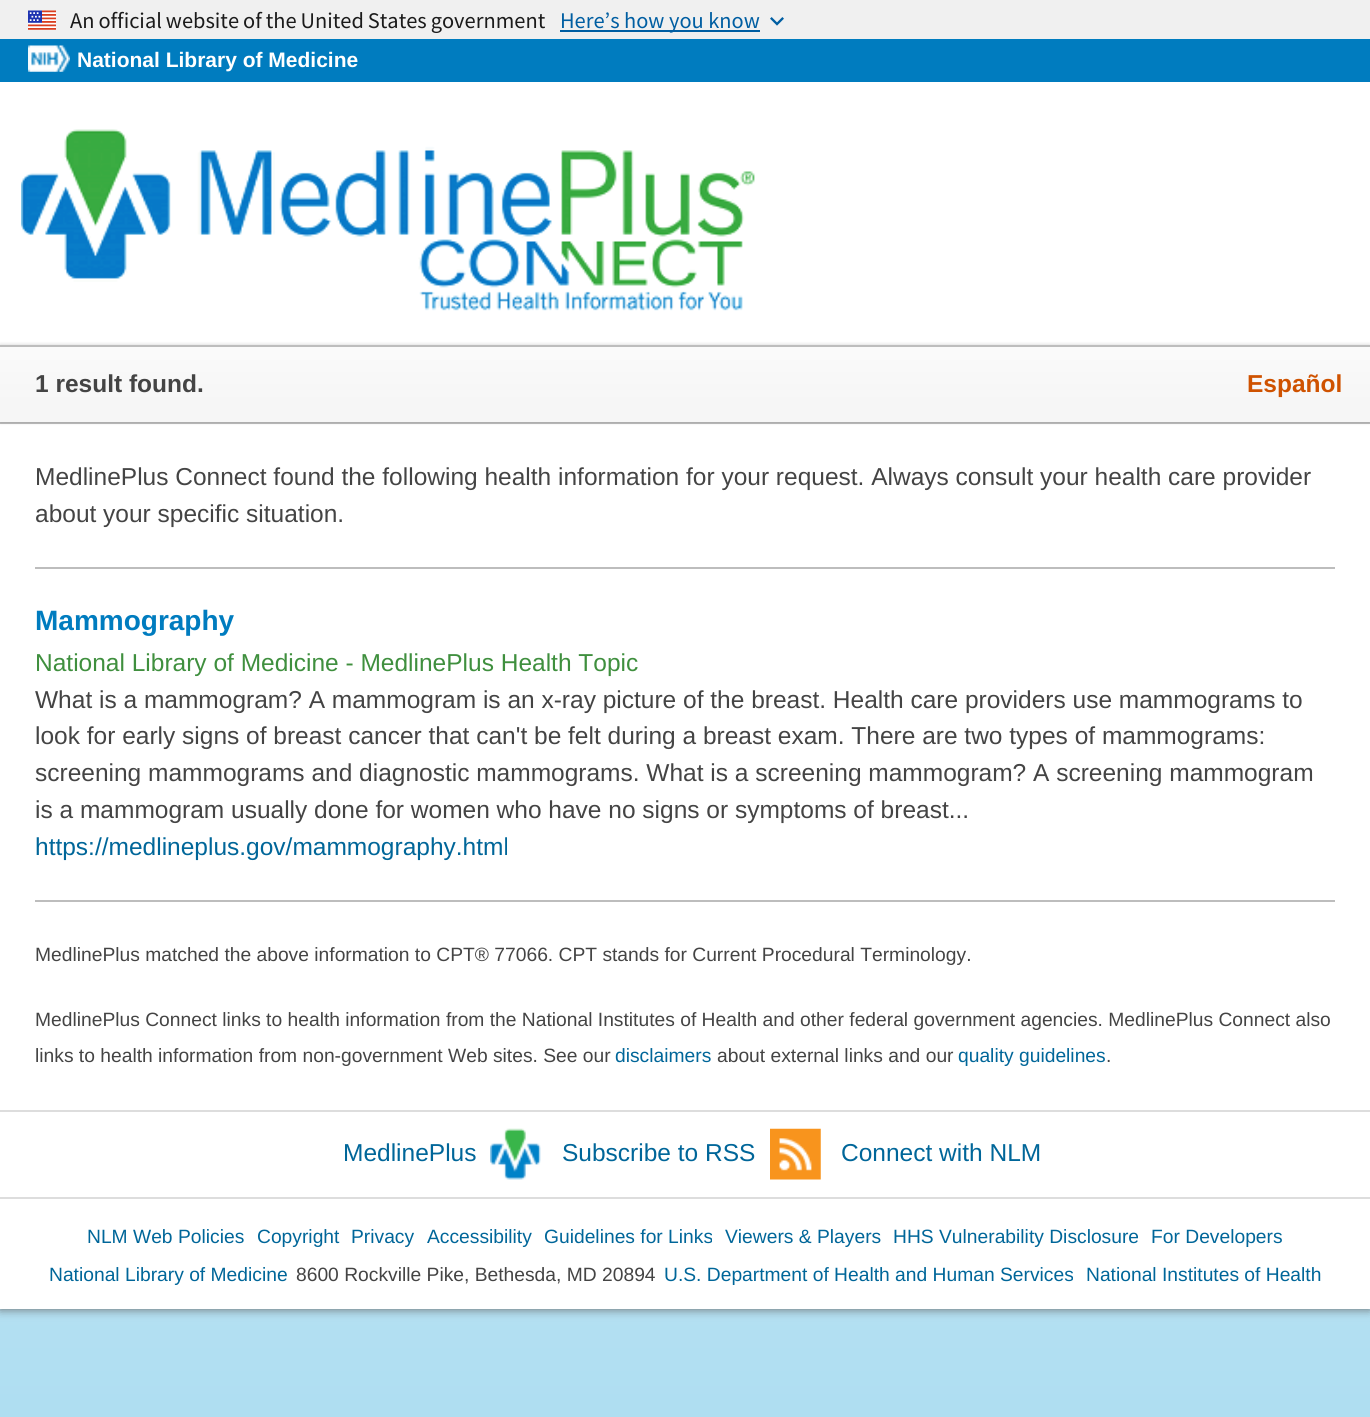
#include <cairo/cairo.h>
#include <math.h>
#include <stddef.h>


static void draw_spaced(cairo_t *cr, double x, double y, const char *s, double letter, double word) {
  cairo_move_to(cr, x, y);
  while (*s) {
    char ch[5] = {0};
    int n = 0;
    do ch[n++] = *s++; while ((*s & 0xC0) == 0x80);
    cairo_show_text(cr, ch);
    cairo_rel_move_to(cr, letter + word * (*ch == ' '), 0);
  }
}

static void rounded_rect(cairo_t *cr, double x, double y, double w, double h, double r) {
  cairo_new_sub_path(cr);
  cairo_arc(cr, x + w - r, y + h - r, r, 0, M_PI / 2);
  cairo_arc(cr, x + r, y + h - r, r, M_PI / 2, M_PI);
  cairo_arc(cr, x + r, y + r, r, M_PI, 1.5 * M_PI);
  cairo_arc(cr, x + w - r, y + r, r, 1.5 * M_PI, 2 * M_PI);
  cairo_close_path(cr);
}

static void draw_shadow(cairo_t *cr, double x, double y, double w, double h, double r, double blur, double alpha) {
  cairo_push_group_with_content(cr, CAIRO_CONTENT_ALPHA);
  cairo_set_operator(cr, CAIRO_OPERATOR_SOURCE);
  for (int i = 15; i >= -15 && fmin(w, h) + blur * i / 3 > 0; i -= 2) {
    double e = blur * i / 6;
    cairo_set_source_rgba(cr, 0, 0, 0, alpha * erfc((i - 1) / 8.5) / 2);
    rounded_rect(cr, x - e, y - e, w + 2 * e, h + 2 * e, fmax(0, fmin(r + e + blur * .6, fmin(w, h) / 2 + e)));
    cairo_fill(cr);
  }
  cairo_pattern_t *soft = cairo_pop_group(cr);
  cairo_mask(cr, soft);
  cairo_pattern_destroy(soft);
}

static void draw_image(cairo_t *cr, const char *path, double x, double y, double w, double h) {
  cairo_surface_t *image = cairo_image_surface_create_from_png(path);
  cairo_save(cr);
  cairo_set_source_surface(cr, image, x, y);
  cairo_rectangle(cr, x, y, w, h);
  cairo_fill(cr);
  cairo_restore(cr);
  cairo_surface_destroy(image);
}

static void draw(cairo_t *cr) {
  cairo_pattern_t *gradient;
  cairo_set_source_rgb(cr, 1, 1, 1);
  cairo_paint(cr);
  gradient = cairo_pattern_create_linear(685, 0, 685, 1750);
  cairo_pattern_add_color_stop_rgba(gradient, 0, 254 / 255.0, 1, 1, 1);
  cairo_pattern_add_color_stop_rgba(gradient, 0.2, 221 / 255.0, 241 / 255.0, 249 / 255.0, 1);
  cairo_pattern_add_color_stop_rgba(gradient, 1, 160 / 255.0, 216 / 255.0, 239 / 255.0, 1);
  cairo_set_source(cr, gradient);
  cairo_pattern_destroy(gradient);
  cairo_rectangle(cr, 0, 1309, 1370, 108);
  cairo_fill(cr);
  cairo_set_source_rgb(cr, 102 / 255.0, 102 / 255.0, 102 / 255.0);
  draw_shadow(cr, 0, 39, 1370, 1270, 0, 5, 1);
  cairo_set_source_rgb(cr, 240 / 255.0, 240 / 255.0, 240 / 255.0);
  cairo_rectangle(cr, 0, 0, 1370, 39);
  cairo_fill(cr);
  draw_image(cr, "images/1.png", 28, 10, 28, 20);
  cairo_set_source_rgb(cr, 0, 94 / 255.0, 162 / 255.0);
  cairo_rectangle(cr, 560, 30, 200, 2);
  cairo_fill(cr);
  draw_image(cr, "images/2.png", 770, 17, 14, 9);
  cairo_set_source_rgb(cr, 1, 1, 1);
  cairo_rectangle(cr, 0, 82, 1370, 1227);
  cairo_fill(cr);
  cairo_set_source_rgb(cr, 0, 124 / 255.0, 191 / 255.0);
  cairo_rectangle(cr, 0, 39, 1370, 43);
  cairo_fill(cr);
  draw_image(cr, "images/3.png", 28, 45, 42, 27);
  draw_image(cr, "images/4.png", 21, 129, 734, 182);
  cairo_set_source_rgb(cr, 189 / 255.0, 189 / 255.0, 189 / 255.0);
  cairo_rectangle(cr, 0, 422, 1370, 2);
  cairo_fill(cr);
  cairo_set_source_rgb(cr, 0, 0, 0);
  draw_shadow(cr, 0, 345, 1370, 77, 0, 2, 0.2);
  gradient = cairo_pattern_create_linear(685, 346, 685, 422);
  cairo_pattern_add_color_stop_rgba(gradient, 0.1, 250 / 255.0, 250 / 255.0, 250 / 255.0, 1);
  cairo_pattern_add_color_stop_rgba(gradient, 0.75, 246 / 255.0, 246 / 255.0, 246 / 255.0, 1);
  cairo_set_source(cr, gradient);
  cairo_pattern_destroy(gradient);
  cairo_rectangle(cr, 0, 347, 1370, 75);
  cairo_fill(cr);
  cairo_set_source_rgb(cr, 189 / 255.0, 189 / 255.0, 189 / 255.0);
  cairo_rectangle(cr, 0, 345, 1370, 2);
  cairo_fill(cr);
  cairo_rectangle(cr, 35, 567, 1300, 2);
  cairo_fill(cr);
  cairo_rectangle(cr, 35, 900, 1300, 2);
  cairo_fill(cr);
  cairo_set_source_rgb(cr, 221 / 255.0, 221 / 255.0, 221 / 255.0);
  cairo_rectangle(cr, 0, 1110, 1370, 2);
  cairo_fill(cr);
  cairo_rectangle(cr, 0, 1197, 1370, 2);
  cairo_fill(cr);
  draw_image(cr, "images/5.png", 490, 1128, 51, 52);
  draw_image(cr, "images/6.png", 770, 1128, 51, 52);
  cairo_select_font_face(cr, "Source Sans Pro", CAIRO_FONT_SLANT_NORMAL, CAIRO_FONT_WEIGHT_NORMAL);
  cairo_set_font_size(cr, 22.4);
  cairo_set_source_rgb(cr, 27 / 255.0, 27 / 255.0, 27 / 255.0);
  draw_spaced(cr, 70, 28, "An official website of the United States government", 0, -0.5);
  cairo_set_source_rgb(cr, 0, 94 / 255.0, 162 / 255.0);
  cairo_move_to(cr, 560, 28);
  cairo_show_text(cr, "Here’s how you know");
  cairo_select_font_face(cr, "Liberation Sans", CAIRO_FONT_SLANT_NORMAL, CAIRO_FONT_WEIGHT_BOLD);
  cairo_set_font_size(cr, 21);
  cairo_set_source_rgb(cr, 1, 1, 1);
  cairo_move_to(cr, 77, 67);
  cairo_show_text(cr, "National Library of Medicine");
  cairo_set_font_size(cr, 24.5);
  cairo_set_source_rgb(cr, 68 / 255.0, 68 / 255.0, 68 / 255.0);
  cairo_move_to(cr, 35, 392);
  cairo_show_text(cr, "1 result found.");
  cairo_set_source_rgb(cr, 207 / 255.0, 82 / 255.0, 0);
  cairo_move_to(cr, 1247, 392);
  cairo_show_text(cr, "Español");
  cairo_select_font_face(cr, "Liberation Sans", CAIRO_FONT_SLANT_NORMAL, CAIRO_FONT_WEIGHT_NORMAL);
  cairo_set_source_rgb(cr, 68 / 255.0, 68 / 255.0, 68 / 255.0);
  cairo_move_to(cr, 35, 485);
  cairo_show_text(cr, "MedlinePlus Connect found the following health information for your request. Always consult your health care provider");
  cairo_move_to(cr, 35, 522);
  cairo_show_text(cr, "about your specific situation.");
  cairo_select_font_face(cr, "Liberation Sans", CAIRO_FONT_SLANT_NORMAL, CAIRO_FONT_WEIGHT_BOLD);
  cairo_set_font_size(cr, 28);
  cairo_set_source_rgb(cr, 0, 124 / 255.0, 191 / 255.0);
  cairo_move_to(cr, 35, 630);
  cairo_show_text(cr, "Mammography");
  cairo_select_font_face(cr, "Liberation Sans", CAIRO_FONT_SLANT_NORMAL, CAIRO_FONT_WEIGHT_NORMAL);
  cairo_set_font_size(cr, 24.5);
  cairo_set_source_rgb(cr, 63 / 255.0, 143 / 255.0, 62 / 255.0);
  cairo_move_to(cr, 35, 671);
  cairo_show_text(cr, "National Library of Medicine - MedlinePlus Health Topic");
  cairo_set_source_rgb(cr, 68 / 255.0, 68 / 255.0, 68 / 255.0);
  cairo_move_to(cr, 35, 708);
  cairo_show_text(cr, "What is a mammogram? A mammogram is an x-ray picture of the breast. Health care providers use mammograms to");
  cairo_move_to(cr, 35, 744);
  cairo_show_text(cr, "look for early signs of breast cancer that can't be felt during a breast exam. There are two types of mammograms:");
  cairo_move_to(cr, 35, 781);
  cairo_show_text(cr, "screening mammograms and diagnostic mammograms. What is a screening mammogram? A screening mammogram");
  cairo_move_to(cr, 35, 818);
  cairo_show_text(cr, "is a mammogram usually done for women who have no signs or symptoms of breast...");
  cairo_set_source_rgb(cr, 0, 102 / 255.0, 153 / 255.0);
  cairo_move_to(cr, 35, 855);
  cairo_show_text(cr, "https://medlineplus.gov/mammography.html");
  cairo_set_font_size(cr, 19.25);
  cairo_set_source_rgb(cr, 68 / 255.0, 68 / 255.0, 68 / 255.0);
  cairo_move_to(cr, 35, 961);
  cairo_show_text(cr, "MedlinePlus matched the above information to CPT® 77066. CPT stands for Current Procedural Terminology.");
  cairo_move_to(cr, 35, 1026);
  cairo_show_text(cr, "MedlinePlus Connect links to health information from the National Institutes of Health and other federal government agencies. MedlinePlus Connect also");
  cairo_move_to(cr, 35, 1062);
  cairo_show_text(cr, "links to health information from non-government Web sites. See our");
  cairo_set_source_rgb(cr, 0, 102 / 255.0, 153 / 255.0);
  cairo_move_to(cr, 615, 1062);
  cairo_show_text(cr, "disclaimers");
  cairo_set_source_rgb(cr, 68 / 255.0, 68 / 255.0, 68 / 255.0);
  cairo_move_to(cr, 717, 1062);
  cairo_show_text(cr, "about external links and our");
  cairo_set_source_rgb(cr, 0, 102 / 255.0, 153 / 255.0);
  cairo_move_to(cr, 958, 1062);
  cairo_show_text(cr, "quality guidelines");
  cairo_set_source_rgb(cr, 68 / 255.0, 68 / 255.0, 68 / 255.0);
  cairo_move_to(cr, 1106, 1062);
  cairo_show_text(cr, ".");
  cairo_set_font_size(cr, 24.5);
  cairo_set_source_rgb(cr, 0, 102 / 255.0, 153 / 255.0);
  cairo_move_to(cr, 343, 1161);
  cairo_show_text(cr, "MedlinePlus");
  cairo_move_to(cr, 562, 1161);
  cairo_show_text(cr, "Subscribe to RSS");
  cairo_move_to(cr, 841, 1161);
  cairo_show_text(cr, "Connect with NLM");
  cairo_set_font_size(cr, 19.25);
  cairo_move_to(cr, 87, 1243);
  cairo_show_text(cr, "NLM Web Policies");
  cairo_move_to(cr, 257, 1243);
  cairo_show_text(cr, "Copyright");
  cairo_move_to(cr, 351, 1243);
  cairo_show_text(cr, "Privacy");
  cairo_move_to(cr, 427, 1243);
  cairo_show_text(cr, "Accessibility");
  cairo_move_to(cr, 544, 1243);
  cairo_show_text(cr, "Guidelines for Links");
  cairo_move_to(cr, 725, 1243);
  cairo_show_text(cr, "Viewers & Players");
  cairo_move_to(cr, 893, 1243);
  cairo_show_text(cr, "HHS Vulnerability Disclosure");
  cairo_move_to(cr, 1151, 1243);
  cairo_show_text(cr, "For Developers");
  cairo_move_to(cr, 49, 1281);
  cairo_show_text(cr, "National Library of Medicine");
  cairo_set_source_rgb(cr, 68 / 255.0, 68 / 255.0, 68 / 255.0);
  cairo_move_to(cr, 296, 1281);
  cairo_show_text(cr, "8600 Rockville Pike, Bethesda, MD 20894");
  cairo_set_source_rgb(cr, 0, 102 / 255.0, 153 / 255.0);
  cairo_move_to(cr, 664, 1281);
  cairo_show_text(cr, "U.S. Department of Health and Human Services");
  cairo_move_to(cr, 1086, 1281);
  cairo_show_text(cr, "National Institutes of Health");
}

int main(void) {
  cairo_surface_t *surface = cairo_image_surface_create(CAIRO_FORMAT_RGB24, 1370, 1417);
  cairo_t *cr = cairo_create(surface);
  cairo_font_options_t *options = cairo_font_options_create();
  cairo_font_options_set_hint_metrics(options, CAIRO_HINT_METRICS_OFF);
  cairo_font_options_set_hint_style(options, CAIRO_HINT_STYLE_NONE);
  cairo_set_font_options(cr, options);
  cairo_set_miter_limit(cr, 4);
  draw(cr);
  cairo_surface_write_to_png(surface, "out.png");
  cairo_font_options_destroy(options);
  cairo_destroy(cr);
  cairo_surface_destroy(surface);
  return 0;
}
